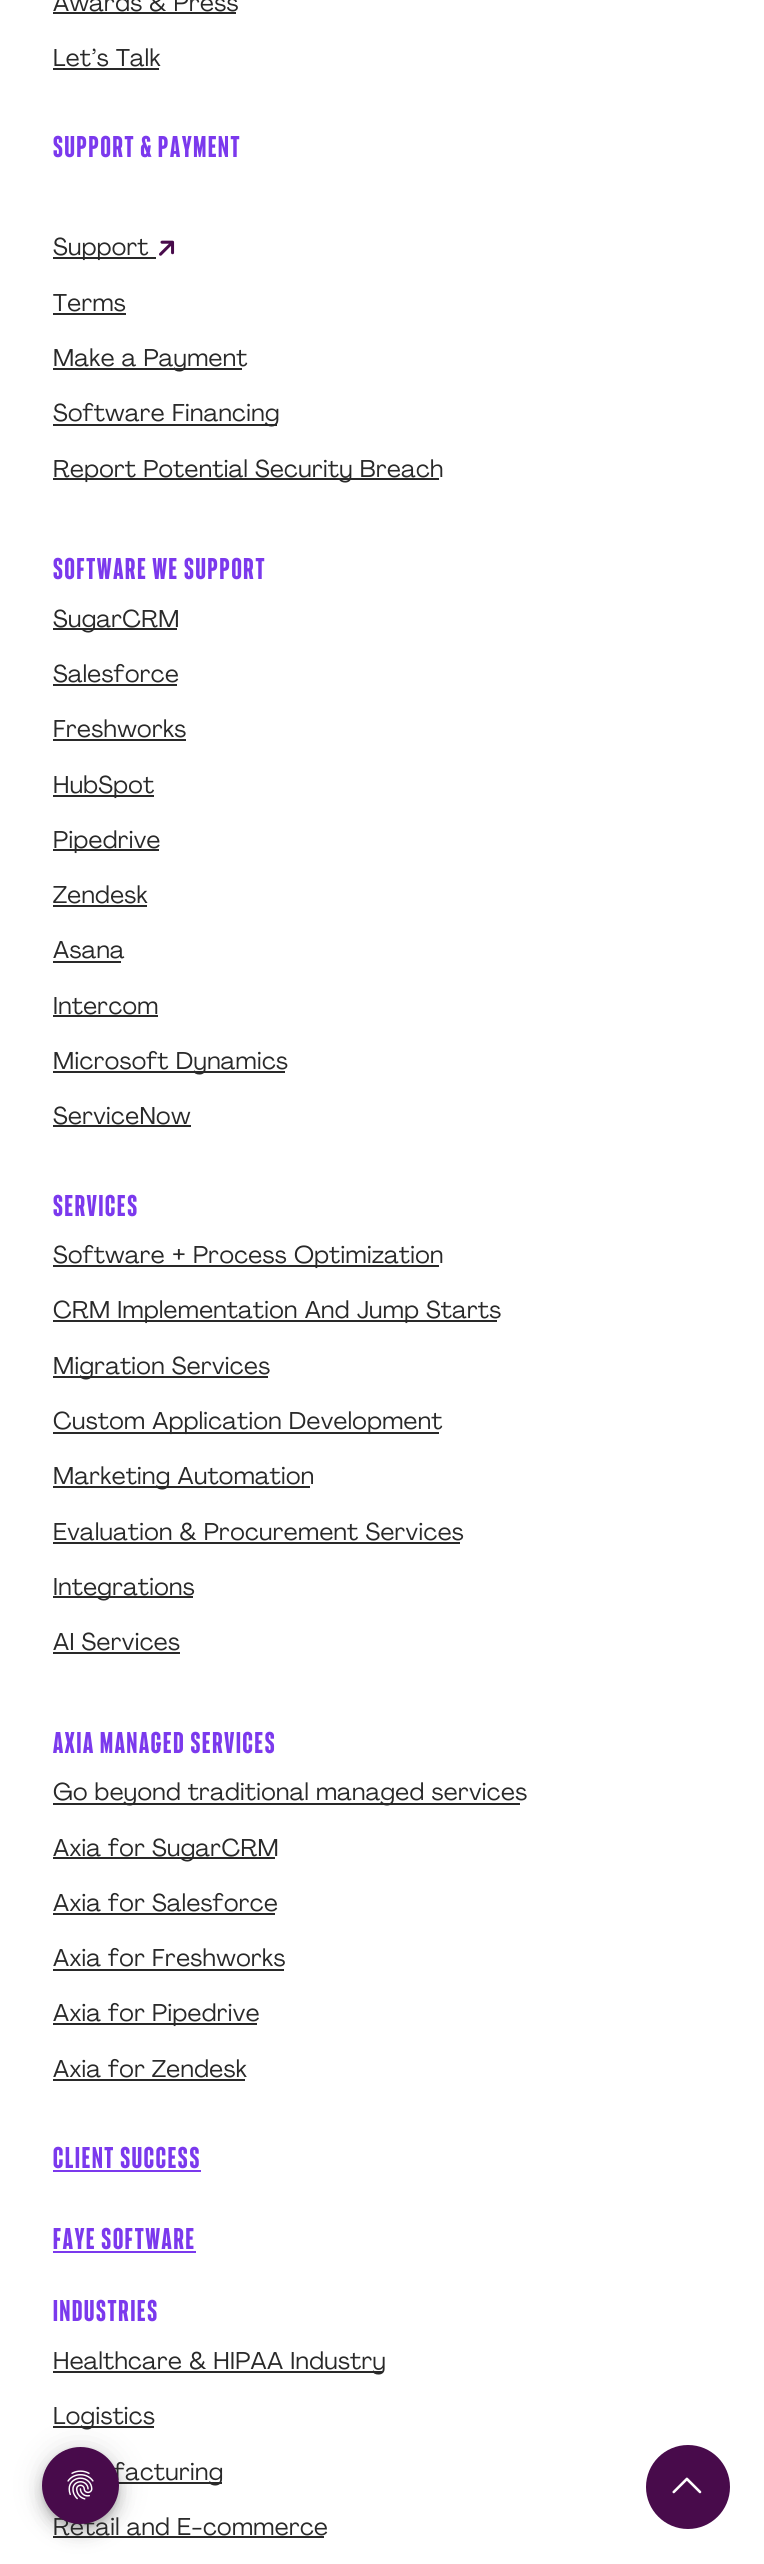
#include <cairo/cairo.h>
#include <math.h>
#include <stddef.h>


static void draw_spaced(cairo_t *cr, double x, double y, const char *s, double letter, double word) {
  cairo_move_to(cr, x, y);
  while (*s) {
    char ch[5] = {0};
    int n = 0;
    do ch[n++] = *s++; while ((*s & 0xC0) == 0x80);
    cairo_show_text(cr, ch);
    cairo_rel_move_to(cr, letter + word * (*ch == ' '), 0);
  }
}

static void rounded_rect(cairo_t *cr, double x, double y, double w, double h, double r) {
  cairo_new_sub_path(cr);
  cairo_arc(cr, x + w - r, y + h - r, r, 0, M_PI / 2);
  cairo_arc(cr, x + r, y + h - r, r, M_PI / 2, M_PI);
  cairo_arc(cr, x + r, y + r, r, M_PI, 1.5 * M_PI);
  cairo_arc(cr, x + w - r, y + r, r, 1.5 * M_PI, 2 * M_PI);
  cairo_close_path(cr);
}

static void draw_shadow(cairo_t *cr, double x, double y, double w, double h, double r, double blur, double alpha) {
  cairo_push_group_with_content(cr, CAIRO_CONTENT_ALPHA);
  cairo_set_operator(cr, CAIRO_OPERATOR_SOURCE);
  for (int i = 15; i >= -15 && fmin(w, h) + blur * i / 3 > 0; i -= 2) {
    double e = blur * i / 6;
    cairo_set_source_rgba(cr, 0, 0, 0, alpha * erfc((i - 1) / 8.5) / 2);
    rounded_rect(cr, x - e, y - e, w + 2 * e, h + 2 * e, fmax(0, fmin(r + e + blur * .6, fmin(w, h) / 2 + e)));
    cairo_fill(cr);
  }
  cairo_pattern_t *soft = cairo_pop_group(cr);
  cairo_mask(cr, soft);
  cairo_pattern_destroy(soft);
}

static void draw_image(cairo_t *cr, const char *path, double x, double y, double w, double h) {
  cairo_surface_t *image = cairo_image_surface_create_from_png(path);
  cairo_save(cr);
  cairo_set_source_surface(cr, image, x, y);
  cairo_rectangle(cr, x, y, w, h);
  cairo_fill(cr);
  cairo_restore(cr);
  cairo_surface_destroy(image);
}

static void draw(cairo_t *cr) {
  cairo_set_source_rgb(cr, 1, 1, 1);
  cairo_paint(cr);
  cairo_set_source_rgb(cr, 41 / 255.0, 41 / 255.0, 41 / 255.0);
  cairo_rectangle(cr, 53, 12, 183, 2);
  cairo_fill(cr);
  cairo_rectangle(cr, 53, 68, 106, 2);
  cairo_fill(cr);
  cairo_rectangle(cr, 53, 257, 103, 2);
  cairo_fill(cr);
  draw_image(cr, "images/1.png", 159, 240, 16, 16);
  cairo_rectangle(cr, 53, 313, 73, 2);
  cairo_fill(cr);
  cairo_rectangle(cr, 53, 368, 189, 2);
  cairo_fill(cr);
  cairo_rectangle(cr, 53, 424, 224, 2);
  cairo_fill(cr);
  cairo_rectangle(cr, 53, 478, 386, 2);
  cairo_fill(cr);
  cairo_rectangle(cr, 53, 628, 124, 2);
  cairo_fill(cr);
  cairo_rectangle(cr, 53, 684, 124, 2);
  cairo_fill(cr);
  cairo_rectangle(cr, 53, 739, 133, 2);
  cairo_fill(cr);
  cairo_rectangle(cr, 53, 795, 101, 2);
  cairo_fill(cr);
  cairo_rectangle(cr, 53, 849, 106, 2);
  cairo_fill(cr);
  cairo_rectangle(cr, 53, 905, 94, 2);
  cairo_fill(cr);
  cairo_rectangle(cr, 53, 961, 68, 2);
  cairo_fill(cr);
  cairo_rectangle(cr, 53, 1015, 105, 2);
  cairo_fill(cr);
  cairo_rectangle(cr, 53, 1071, 232, 2);
  cairo_fill(cr);
  cairo_rectangle(cr, 53, 1125, 138, 2);
  cairo_fill(cr);
  cairo_rectangle(cr, 53, 1265, 386, 2);
  cairo_fill(cr);
  cairo_rectangle(cr, 53, 1320, 444, 2);
  cairo_fill(cr);
  cairo_rectangle(cr, 53, 1376, 215, 2);
  cairo_fill(cr);
  cairo_rectangle(cr, 53, 1432, 386, 2);
  cairo_fill(cr);
  cairo_rectangle(cr, 53, 1486, 257, 2);
  cairo_fill(cr);
  cairo_rectangle(cr, 53, 1542, 407, 2);
  cairo_fill(cr);
  cairo_rectangle(cr, 53, 1596, 140, 2);
  cairo_fill(cr);
  cairo_rectangle(cr, 53, 1652, 127, 2);
  cairo_fill(cr);
  cairo_rectangle(cr, 53, 1803, 467, 2);
  cairo_fill(cr);
  cairo_rectangle(cr, 53, 1857, 222, 2);
  cairo_fill(cr);
  cairo_rectangle(cr, 53, 1913, 222, 2);
  cairo_fill(cr);
  cairo_rectangle(cr, 53, 1969, 231, 2);
  cairo_fill(cr);
  cairo_rectangle(cr, 53, 2023, 204, 2);
  cairo_fill(cr);
  cairo_rectangle(cr, 53, 2079, 192, 2);
  cairo_fill(cr);
  cairo_set_source_rgb(cr, 123 / 255.0, 57 / 255.0, 237 / 255.0);
  cairo_rectangle(cr, 53, 2170, 148, 2);
  cairo_fill(cr);
  cairo_rectangle(cr, 53, 2251, 143, 2);
  cairo_fill(cr);
  cairo_set_source_rgb(cr, 41 / 255.0, 41 / 255.0, 41 / 255.0);
  cairo_rectangle(cr, 53, 2371, 329, 2);
  cairo_fill(cr);
  cairo_rectangle(cr, 53, 2426, 101, 2);
  cairo_fill(cr);
  cairo_rectangle(cr, 118, 2482, 104, 2);
  cairo_fill(cr);
  cairo_rectangle(cr, 53, 2536, 271, 2);
  cairo_fill(cr);
  cairo_set_source_rgb(cr, 0, 0, 0);
  draw_shadow(cr, 42, 2448, 77, 77, 38.5, 16, 0.12);
  draw_shadow(cr, 42, 2457, 77, 77, 38.5, 9, 0.14);
  draw_shadow(cr, 44, 2454, 73, 73, 36.5, 4.5, 0.2);
  cairo_set_source_rgb(cr, 72 / 255.0, 11 / 255.0, 75 / 255.0);
  cairo_arc(cr, 688, 2487, 42, 0, 2 * M_PI);
  cairo_fill(cr);
  draw_image(cr, "images/3.png", 672, 2477, 30, 17);
  cairo_select_font_face(cr, "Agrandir", CAIRO_FONT_SLANT_NORMAL, CAIRO_FONT_WEIGHT_NORMAL);
  cairo_set_font_size(cr, 24.1);
  cairo_set_source_rgb(cr, 41 / 255.0, 41 / 255.0, 41 / 255.0);
  draw_spaced(cr, 53, 11, "Awards & Press", 0.35, 0);
  draw_spaced(cr, 53, 66, "Let’s Talk", 0.35, 0);
  cairo_select_font_face(cr, "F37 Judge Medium", CAIRO_FONT_SLANT_NORMAL, CAIRO_FONT_WEIGHT_NORMAL);
  cairo_set_font_size(cr, 28);
  cairo_set_source_rgb(cr, 123 / 255.0, 57 / 255.0, 237 / 255.0);
  draw_spaced(cr, 53, 157, "SUPPORT & PAYMENT", 1.75, 0);
  cairo_select_font_face(cr, "Agrandir", CAIRO_FONT_SLANT_NORMAL, CAIRO_FONT_WEIGHT_NORMAL);
  cairo_set_font_size(cr, 24.1);
  cairo_set_source_rgb(cr, 41 / 255.0, 41 / 255.0, 41 / 255.0);
  draw_spaced(cr, 53, 255, "Support", 0.35, 0);
  draw_spaced(cr, 53, 311, "Terms", 0.35, 0);
  draw_spaced(cr, 53, 366, "Make a Payment", 0.35, 0);
  draw_spaced(cr, 53, 421, "Software Financing", 0.35, 0);
  draw_spaced(cr, 53, 477, "Report Potential Security Breach", 0.35, 0);
  cairo_select_font_face(cr, "F37 Judge Medium", CAIRO_FONT_SLANT_NORMAL, CAIRO_FONT_WEIGHT_NORMAL);
  cairo_set_font_size(cr, 28);
  cairo_set_source_rgb(cr, 123 / 255.0, 57 / 255.0, 237 / 255.0);
  draw_spaced(cr, 53, 579, "SOFTWARE WE SUPPORT", 1.75, 0);
  cairo_select_font_face(cr, "Agrandir", CAIRO_FONT_SLANT_NORMAL, CAIRO_FONT_WEIGHT_NORMAL);
  cairo_set_font_size(cr, 24.1);
  cairo_set_source_rgb(cr, 41 / 255.0, 41 / 255.0, 41 / 255.0);
  draw_spaced(cr, 53, 627, "SugarCRM", 0.35, 0);
  draw_spaced(cr, 53, 682, "Salesforce", 0.35, 0);
  draw_spaced(cr, 53, 737, "Freshworks", 0.35, 0);
  draw_spaced(cr, 53, 793, "HubSpot", 0.35, 0);
  draw_spaced(cr, 53, 848, "Pipedrive", 0.35, 0);
  draw_spaced(cr, 53, 903, "Zendesk", 0.35, 0);
  draw_spaced(cr, 53, 958, "Asana", 0.35, 0);
  draw_spaced(cr, 53, 1014, "Intercom", 0.35, 0);
  draw_spaced(cr, 53, 1069, "Microsoft Dynamics", 0.35, 0);
  draw_spaced(cr, 53, 1124, "ServiceNow", 0.35, 0);
  cairo_select_font_face(cr, "F37 Judge Medium", CAIRO_FONT_SLANT_NORMAL, CAIRO_FONT_WEIGHT_NORMAL);
  cairo_set_font_size(cr, 28);
  cairo_set_source_rgb(cr, 123 / 255.0, 57 / 255.0, 237 / 255.0);
  draw_spaced(cr, 53, 1216, "SERVICES", 1.75, 0);
  cairo_select_font_face(cr, "Agrandir", CAIRO_FONT_SLANT_NORMAL, CAIRO_FONT_WEIGHT_NORMAL);
  cairo_set_font_size(cr, 24.1);
  cairo_set_source_rgb(cr, 41 / 255.0, 41 / 255.0, 41 / 255.0);
  draw_spaced(cr, 53, 1263, "Software + Process Optimization", 0.35, 0);
  draw_spaced(cr, 53, 1318, "CRM Implementation And Jump Starts", 0.35, 0);
  draw_spaced(cr, 53, 1374, "Migration Services", 0.35, 0);
  draw_spaced(cr, 53, 1429, "Custom Application Development", 0.35, 0);
  draw_spaced(cr, 53, 1484, "Marketing Automation", 0.35, 0);
  draw_spaced(cr, 53, 1540, "Evaluation & Procurement Services", 0.35, 0);
  draw_spaced(cr, 53, 1595, "Integrations", 0.35, 0);
  draw_spaced(cr, 53, 1650, "AI Services", 0.35, 0);
  cairo_select_font_face(cr, "F37 Judge Medium", CAIRO_FONT_SLANT_NORMAL, CAIRO_FONT_WEIGHT_NORMAL);
  cairo_set_font_size(cr, 28);
  cairo_set_source_rgb(cr, 123 / 255.0, 57 / 255.0, 237 / 255.0);
  draw_spaced(cr, 53, 1753, "AXIA MANAGED SERVICES", 1.75, 0);
  cairo_select_font_face(cr, "Agrandir", CAIRO_FONT_SLANT_NORMAL, CAIRO_FONT_WEIGHT_NORMAL);
  cairo_set_font_size(cr, 24.1);
  cairo_set_source_rgb(cr, 41 / 255.0, 41 / 255.0, 41 / 255.0);
  draw_spaced(cr, 53, 1800, "Go beyond traditional managed services", 0.35, 0);
  draw_spaced(cr, 53, 1856, "Axia for SugarCRM", 0.35, 0);
  draw_spaced(cr, 53, 1911, "Axia for Salesforce", 0.35, 0);
  draw_spaced(cr, 53, 1966, "Axia for Freshworks", 0.35, 0);
  draw_spaced(cr, 53, 2021, "Axia for Pipedrive", 0.35, 0);
  draw_spaced(cr, 53, 2077, "Axia for Zendesk", 0.35, 0);
  cairo_select_font_face(cr, "F37 Judge Medium", CAIRO_FONT_SLANT_NORMAL, CAIRO_FONT_WEIGHT_NORMAL);
  cairo_set_font_size(cr, 28);
  cairo_set_source_rgb(cr, 123 / 255.0, 57 / 255.0, 237 / 255.0);
  draw_spaced(cr, 53, 2168, "CLIENT SUCCESS", 1.75, 0);
  draw_spaced(cr, 53, 2249, "FAYE SOFTWARE", 1.75, 0);
  draw_spaced(cr, 53, 2321, "INDUSTRIES", 1.75, 0);
  cairo_select_font_face(cr, "Agrandir", CAIRO_FONT_SLANT_NORMAL, CAIRO_FONT_WEIGHT_NORMAL);
  cairo_set_font_size(cr, 24.1);
  cairo_set_source_rgb(cr, 41 / 255.0, 41 / 255.0, 41 / 255.0);
  draw_spaced(cr, 53, 2369, "Healthcare & HIPAA Industry", 0.35, 0);
  draw_spaced(cr, 53, 2424, "Logistics", 0.35, 0);
  draw_spaced(cr, 114, 2480, "facturing", 0.35, 0);
  draw_spaced(cr, 53, 2535, "Retail and E-commerce", 0.35, 0);
  cairo_set_source_rgb(cr, 72 / 255.0, 11 / 255.0, 75 / 255.0);
  cairo_new_path(cr);
  cairo_arc(cr, 80.5, 2485.5, 38.5, 0, 2 * M_PI);
  cairo_fill(cr);
  draw_image(cr, "images/2.png", 67, 2470, 27, 30);
}

int main(void) {
  cairo_surface_t *surface = cairo_image_surface_create(CAIRO_FORMAT_RGB24, 764, 2564);
  cairo_t *cr = cairo_create(surface);
  cairo_font_options_t *options = cairo_font_options_create();
  cairo_font_options_set_hint_metrics(options, CAIRO_HINT_METRICS_OFF);
  cairo_font_options_set_hint_style(options, CAIRO_HINT_STYLE_NONE);
  cairo_set_font_options(cr, options);
  cairo_set_miter_limit(cr, 4);
  draw(cr);
  cairo_surface_write_to_png(surface, "out.png");
  cairo_font_options_destroy(options);
  cairo_destroy(cr);
  cairo_surface_destroy(surface);
  return 0;
}
